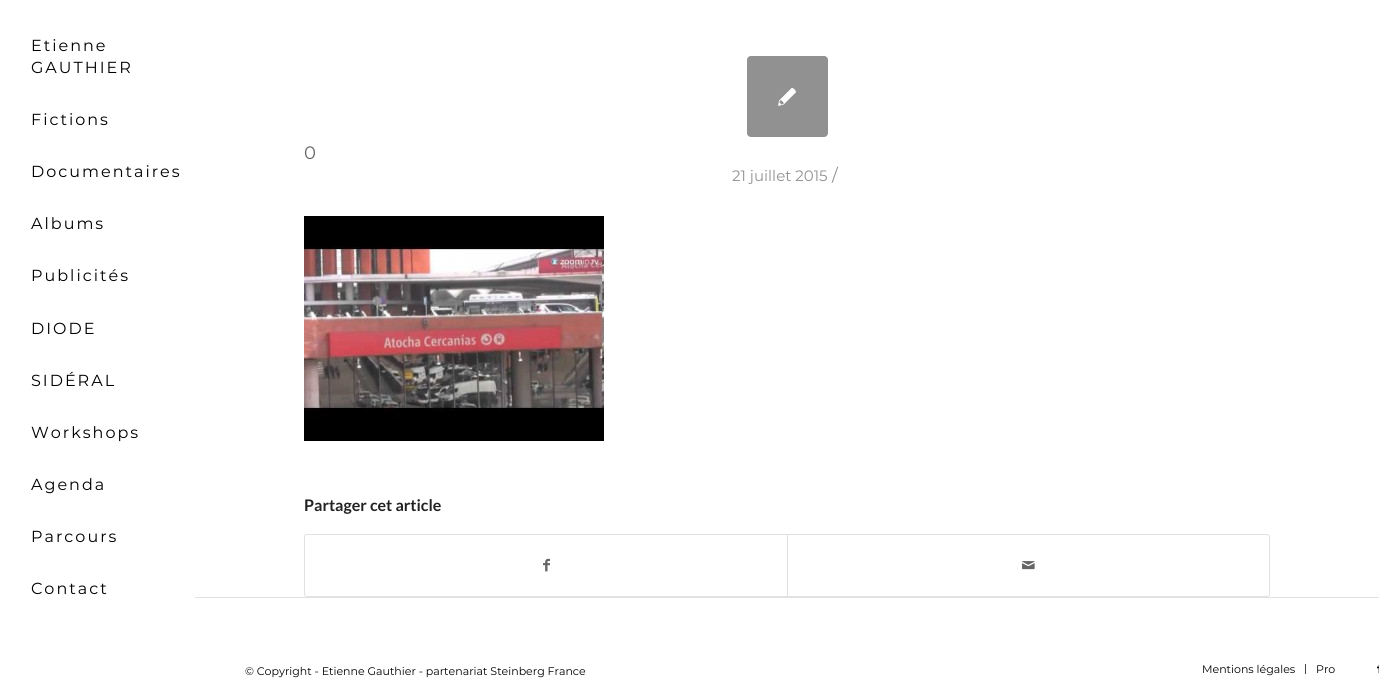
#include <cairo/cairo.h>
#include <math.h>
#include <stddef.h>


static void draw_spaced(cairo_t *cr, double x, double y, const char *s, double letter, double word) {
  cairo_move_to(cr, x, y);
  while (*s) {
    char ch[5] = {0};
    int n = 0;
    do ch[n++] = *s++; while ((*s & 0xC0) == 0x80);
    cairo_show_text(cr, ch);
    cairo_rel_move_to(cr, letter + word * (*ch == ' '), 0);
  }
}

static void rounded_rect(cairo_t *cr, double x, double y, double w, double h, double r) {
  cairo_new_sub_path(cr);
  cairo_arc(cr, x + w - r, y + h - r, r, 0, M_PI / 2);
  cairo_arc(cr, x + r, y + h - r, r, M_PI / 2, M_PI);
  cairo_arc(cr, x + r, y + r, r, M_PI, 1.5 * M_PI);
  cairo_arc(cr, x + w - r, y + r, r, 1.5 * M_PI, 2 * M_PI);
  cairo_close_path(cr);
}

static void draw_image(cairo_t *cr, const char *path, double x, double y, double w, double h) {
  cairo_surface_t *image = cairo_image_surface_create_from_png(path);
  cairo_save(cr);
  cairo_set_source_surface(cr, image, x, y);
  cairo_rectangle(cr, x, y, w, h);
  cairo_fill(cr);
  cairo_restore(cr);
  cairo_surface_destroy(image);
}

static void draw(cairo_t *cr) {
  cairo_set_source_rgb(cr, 1, 1, 1);
  cairo_paint(cr);
  cairo_set_source_rgb(cr, 145 / 255.0, 145 / 255.0, 145 / 255.0);
  rounded_rect(cr, 747, 56, 81, 81, 4);
  cairo_fill(cr);
  draw_image(cr, "images/1.png", 778, 88, 18, 18);
  draw_image(cr, "images/2.png", 304, 216, 300, 225);
  rounded_rect(cr, 304.5, 534.5, 965, 62, 2.5);
  cairo_set_source_rgb(cr, 225 / 255.0, 225 / 255.0, 225 / 255.0);
  cairo_set_line_width(cr, 1);
  cairo_stroke(cr);
  draw_image(cr, "images/3.png", 543, 558, 7, 14);
  cairo_rectangle(cr, 787, 535, 1, 61);
  cairo_fill(cr);
  draw_image(cr, "images/4.png", 1022, 561, 13, 9);
  cairo_rectangle(cr, 195, 597, 1184, 1);
  cairo_fill(cr);
  cairo_set_source_rgb(cr, 68 / 255.0, 68 / 255.0, 68 / 255.0);
  cairo_rectangle(cr, 1305, 664, 1, 10);
  cairo_fill(cr);
  draw_image(cr, "images/5.png", 1377, 664, 2, 10);
  cairo_select_font_face(cr, "Montserrat Thin", CAIRO_FONT_SLANT_NORMAL, CAIRO_FONT_WEIGHT_NORMAL);
  cairo_set_font_size(cr, 16);
  cairo_set_source_rgb(cr, 0, 0, 0);
  draw_spaced(cr, 31, 51, "Etienne", 2, 0);
  draw_spaced(cr, 31, 73, "GAUTHIER", 2, 0);
  draw_spaced(cr, 31, 125, "Fictions", 2, 0);
  draw_spaced(cr, 31, 177, "Documentaires", 2, 0);
  draw_spaced(cr, 31, 229, "Albums", 2, 0);
  draw_spaced(cr, 31, 281, "Publicités", 2, 0);
  draw_spaced(cr, 31, 334, "DIODE", 2, 0);
  draw_spaced(cr, 31, 386, "SIDÉRAL", 2, 0);
  draw_spaced(cr, 31, 438, "Workshops", 2, 0);
  draw_spaced(cr, 31, 490, "Agenda", 2, 0);
  draw_spaced(cr, 31, 542, "Parcours", 2, 0);
  draw_spaced(cr, 31, 594, "Contact", 2, 0);
  cairo_set_font_size(cr, 18);
  cairo_set_source_rgb(cr, 102 / 255.0, 102 / 255.0, 102 / 255.0);
  cairo_move_to(cr, 304, 159);
  cairo_show_text(cr, "0");
  cairo_set_font_size(cr, 15);
  cairo_set_source_rgb(cr, 145 / 255.0, 145 / 255.0, 145 / 255.0);
  cairo_move_to(cr, 732, 181);
  cairo_show_text(cr, "21 juillet 2015");
  cairo_set_font_size(cr, 17);
  cairo_move_to(cr, 832, 181);
  cairo_show_text(cr, "/");
  cairo_select_font_face(cr, "Lato", CAIRO_FONT_SLANT_NORMAL, CAIRO_FONT_WEIGHT_BOLD);
  cairo_set_font_size(cr, 16);
  cairo_set_source_rgb(cr, 34 / 255.0, 34 / 255.0, 34 / 255.0);
  cairo_move_to(cr, 304, 511);
  cairo_show_text(cr, "Partager cet article");
  cairo_select_font_face(cr, "Montserrat Thin", CAIRO_FONT_SLANT_NORMAL, CAIRO_FONT_WEIGHT_NORMAL);
  cairo_set_font_size(cr, 11);
  cairo_set_source_rgb(cr, 0, 0, 0);
  cairo_move_to(cr, 245, 675);
  cairo_show_text(cr, "© Copyright - Etienne Gauthier - partenariat Steinberg France");
  cairo_move_to(cr, 1202, 673);
  cairo_show_text(cr, "Mentions légales");
  cairo_move_to(cr, 1316, 673);
  cairo_show_text(cr, "Pro");
}

int main(void) {
  cairo_surface_t *surface = cairo_image_surface_create(CAIRO_FORMAT_RGB24, 1379, 699);
  cairo_t *cr = cairo_create(surface);
  cairo_font_options_t *options = cairo_font_options_create();
  cairo_font_options_set_hint_metrics(options, CAIRO_HINT_METRICS_OFF);
  cairo_font_options_set_hint_style(options, CAIRO_HINT_STYLE_NONE);
  cairo_set_font_options(cr, options);
  cairo_set_miter_limit(cr, 4);
  draw(cr);
  cairo_surface_write_to_png(surface, "out.png");
  cairo_font_options_destroy(options);
  cairo_destroy(cr);
  cairo_surface_destroy(surface);
  return 0;
}
